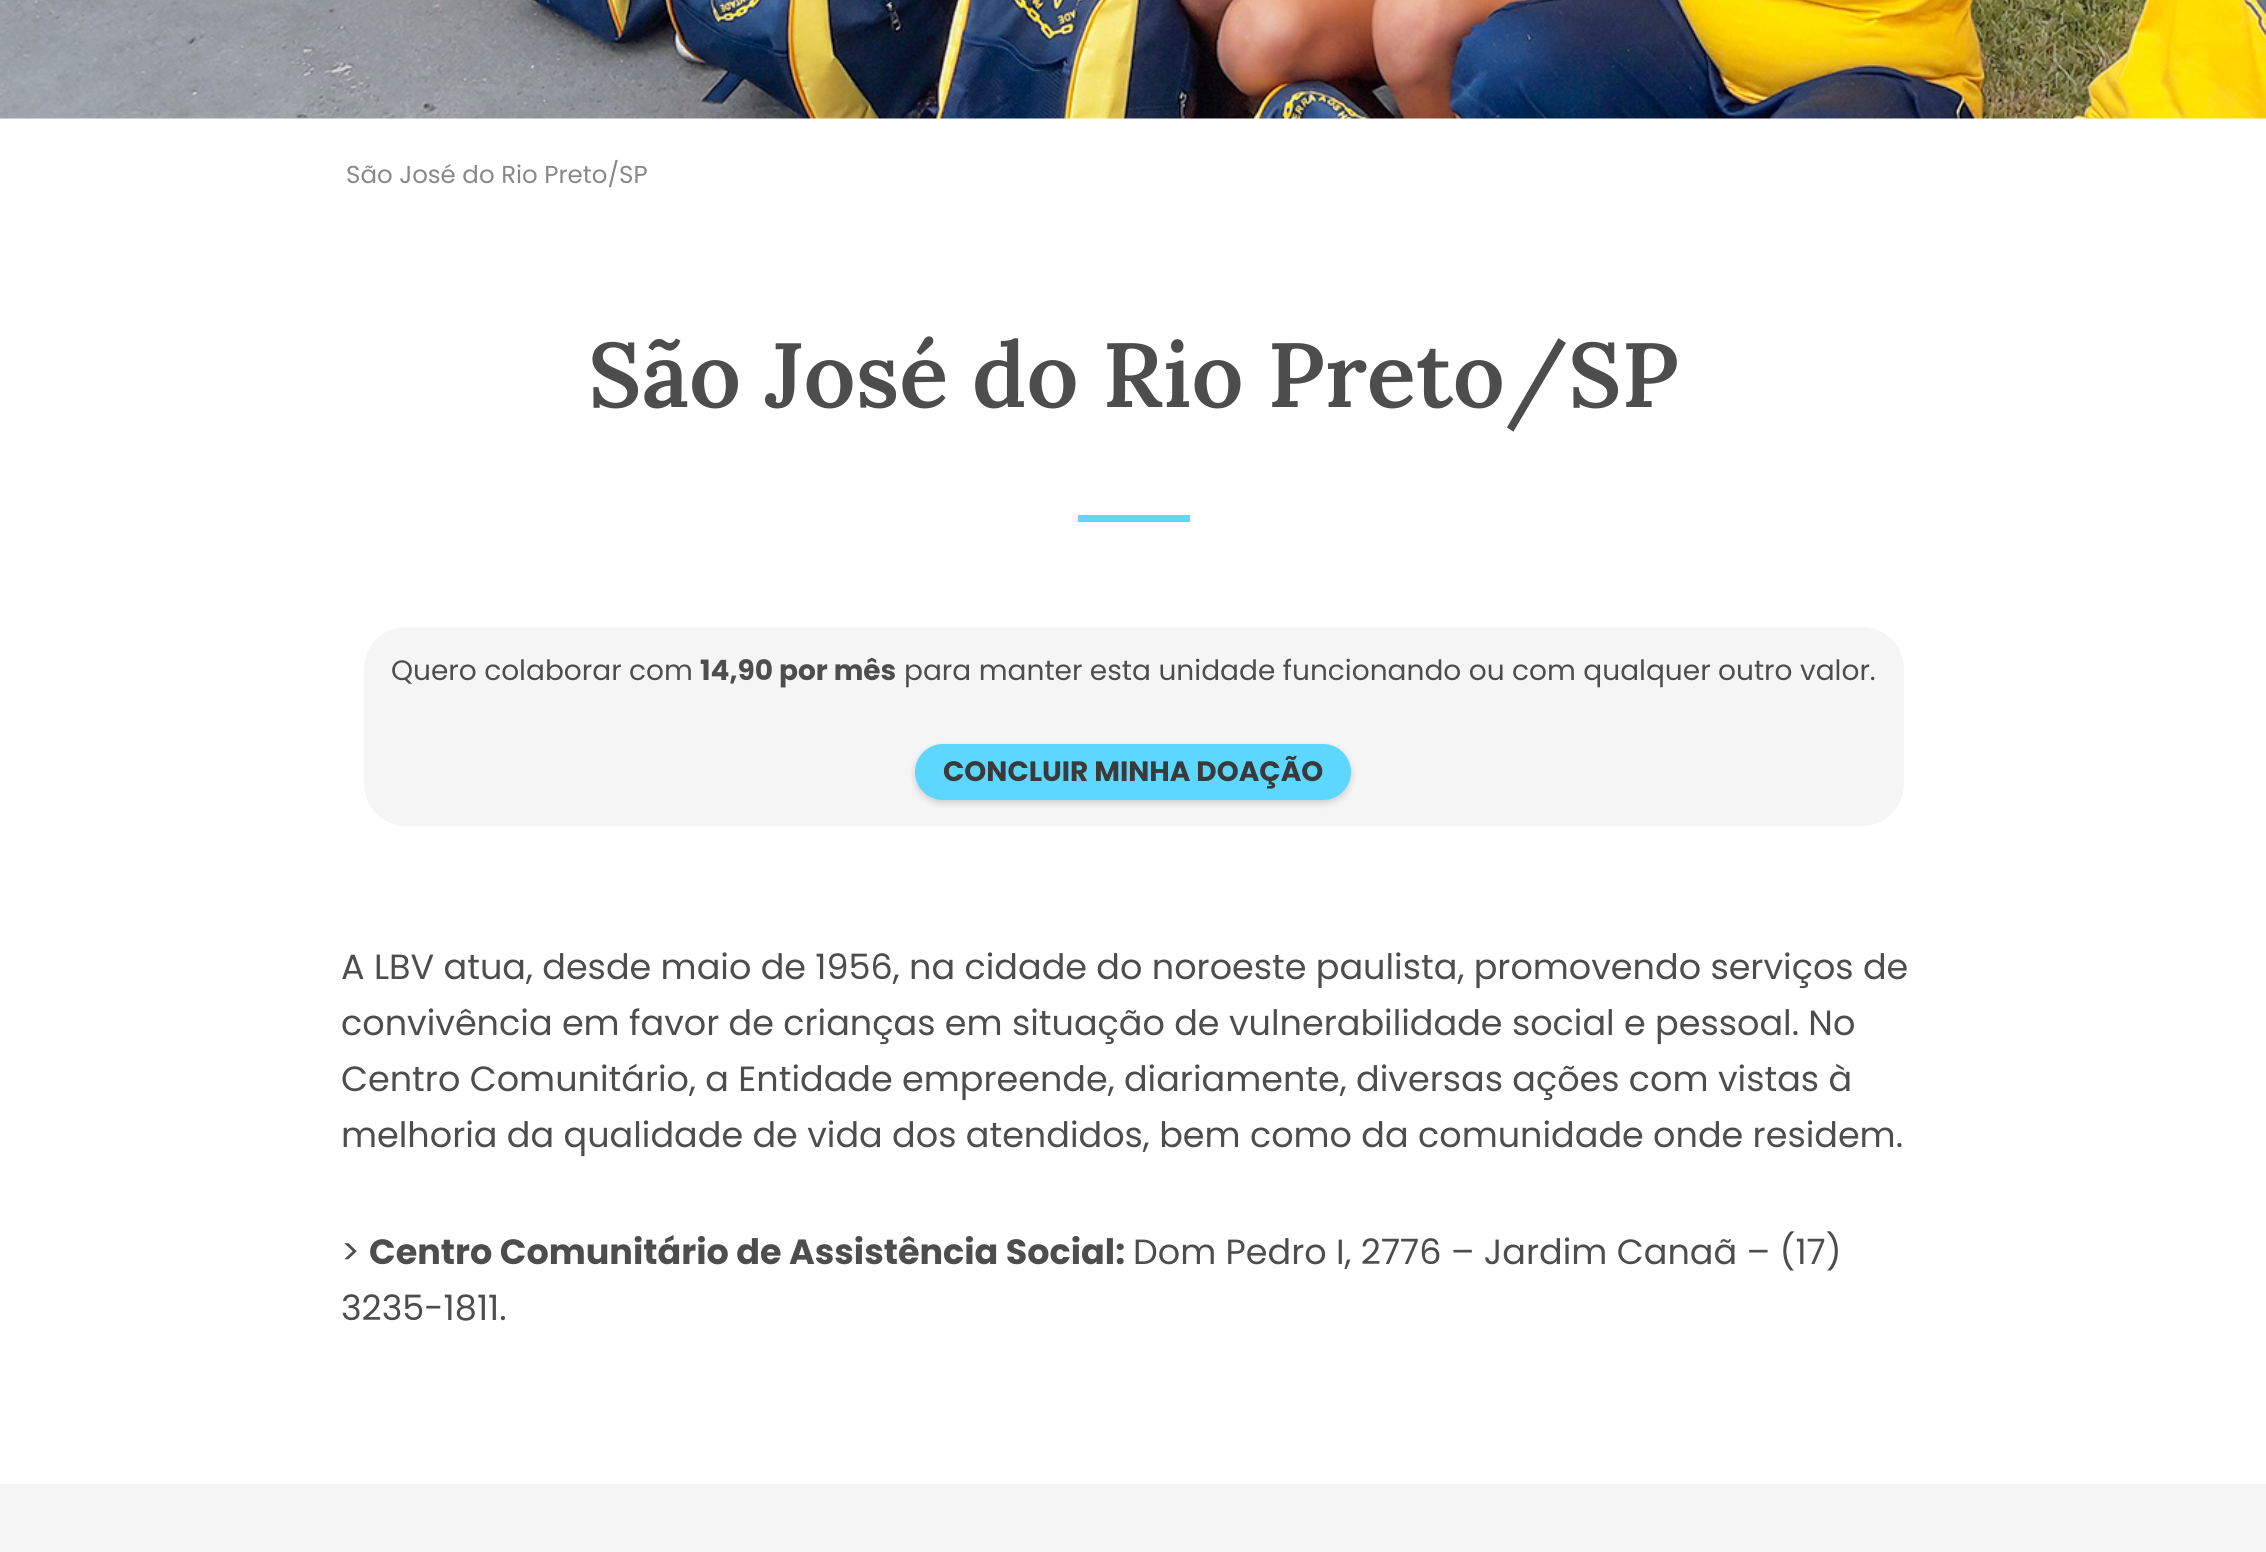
#include <cairo/cairo.h>
#include <math.h>
#include <stddef.h>


static void rounded_rect(cairo_t *cr, double x, double y, double w, double h, double r) {
  cairo_new_sub_path(cr);
  cairo_arc(cr, x + w - r, y + h - r, r, 0, M_PI / 2);
  cairo_arc(cr, x + r, y + h - r, r, M_PI / 2, M_PI);
  cairo_arc(cr, x + r, y + r, r, M_PI, 1.5 * M_PI);
  cairo_arc(cr, x + w - r, y + r, r, 1.5 * M_PI, 2 * M_PI);
  cairo_close_path(cr);
}

static void draw_shadow(cairo_t *cr, double x, double y, double w, double h, double r, double blur, double alpha) {
  cairo_push_group_with_content(cr, CAIRO_CONTENT_ALPHA);
  cairo_set_operator(cr, CAIRO_OPERATOR_SOURCE);
  for (int i = 15; i >= -15 && fmin(w, h) + blur * i / 3 > 0; i -= 2) {
    double e = blur * i / 6;
    cairo_set_source_rgba(cr, 0, 0, 0, alpha * erfc((i - 1) / 8.5) / 2);
    rounded_rect(cr, x - e, y - e, w + 2 * e, h + 2 * e, fmax(0, fmin(r + e + blur * .6, fmin(w, h) / 2 + e)));
    cairo_fill(cr);
  }
  cairo_pattern_t *soft = cairo_pop_group(cr);
  cairo_mask(cr, soft);
  cairo_pattern_destroy(soft);
}

static void draw_image(cairo_t *cr, const char *path, double x, double y, double w, double h) {
  cairo_surface_t *image = cairo_image_surface_create_from_png(path);
  cairo_save(cr);
  cairo_set_source_surface(cr, image, x, y);
  cairo_rectangle(cr, x, y, w, h);
  cairo_fill(cr);
  cairo_restore(cr);
  cairo_surface_destroy(image);
}

static void draw(cairo_t *cr) {
  cairo_set_source_rgb(cr, 1, 1, 1);
  cairo_paint(cr);
  draw_image(cr, "images/1.png", 0, 0, 2266, 119);
  cairo_set_source_rgb(cr, 94 / 255.0, 215 / 255.0, 1);
  cairo_rectangle(cr, 1078, 515, 112, 7);
  cairo_fill(cr);
  cairo_set_source_rgb(cr, 245 / 255.0, 245 / 255.0, 245 / 255.0);
  rounded_rect(cr, 364, 627, 1540, 199, 42);
  cairo_fill(cr);
  cairo_set_source_rgb(cr, 0, 0, 0);
  draw_shadow(cr, 915, 747, 436, 56, 28, 3.5, 0.16);
  cairo_set_source_rgb(cr, 94 / 255.0, 215 / 255.0, 1);
  rounded_rect(cr, 915, 744, 436, 56, 28);
  cairo_fill(cr);
  cairo_set_source_rgb(cr, 245 / 255.0, 245 / 255.0, 245 / 255.0);
  cairo_rectangle(cr, 0, 1484, 2266, 68);
  cairo_fill(cr);
  cairo_select_font_face(cr, "Poppins", CAIRO_FONT_SLANT_NORMAL, CAIRO_FONT_WEIGHT_NORMAL);
  cairo_set_font_size(cr, 24.5);
  cairo_set_source_rgb(cr, 136 / 255.0, 136 / 255.0, 136 / 255.0);
  cairo_move_to(cr, 346, 183);
  cairo_show_text(cr, "São José do Rio Preto/SP");
  cairo_select_font_face(cr, "Lora SemiBold", CAIRO_FONT_SLANT_NORMAL, CAIRO_FONT_WEIGHT_NORMAL);
  cairo_set_font_size(cr, 91);
  cairo_set_source_rgb(cr, 77 / 255.0, 77 / 255.0, 77 / 255.0);
  cairo_move_to(cr, 588, 407);
  cairo_show_text(cr, "São José do Rio Preto/SP");
  cairo_select_font_face(cr, "Poppins", CAIRO_FONT_SLANT_NORMAL, CAIRO_FONT_WEIGHT_NORMAL);
  cairo_set_font_size(cr, 28);
  cairo_move_to(cr, 391, 680);
  cairo_show_text(cr, "Quero colaborar com");
  cairo_select_font_face(cr, "Poppins", CAIRO_FONT_SLANT_NORMAL, CAIRO_FONT_WEIGHT_BOLD);
  cairo_move_to(cr, 700, 680);
  cairo_show_text(cr, "14,90 por mês");
  cairo_select_font_face(cr, "Poppins", CAIRO_FONT_SLANT_NORMAL, CAIRO_FONT_WEIGHT_NORMAL);
  cairo_move_to(cr, 904, 680);
  cairo_show_text(cr, "para manter esta unidade funcionando ou com qualquer outro valor.");
  cairo_select_font_face(cr, "Poppins", CAIRO_FONT_SLANT_NORMAL, CAIRO_FONT_WEIGHT_BOLD);
  cairo_set_source_rgb(cr, 58 / 255.0, 58 / 255.0, 58 / 255.0);
  cairo_move_to(cr, 943, 781);
  cairo_show_text(cr, "CONCLUIR MINHA DOAÇÃO");
  cairo_select_font_face(cr, "Poppins", CAIRO_FONT_SLANT_NORMAL, CAIRO_FONT_WEIGHT_NORMAL);
  cairo_set_font_size(cr, 35);
  cairo_set_source_rgb(cr, 77 / 255.0, 77 / 255.0, 77 / 255.0);
  cairo_move_to(cr, 341, 979);
  cairo_show_text(cr, "A LBV atua, desde maio de 1956, na cidade do noroeste paulista, promovendo serviços de");
  cairo_move_to(cr, 341, 1035);
  cairo_show_text(cr, "convivência em favor de crianças em situação de vulnerabilidade social e pessoal. No");
  cairo_move_to(cr, 341, 1091);
  cairo_show_text(cr, "Centro Comunitário, a Entidade empreende, diariamente, diversas ações com vistas à");
  cairo_move_to(cr, 341, 1147);
  cairo_show_text(cr, "melhoria da qualidade de vida dos atendidos, bem como da comunidade onde residem.");
  cairo_move_to(cr, 341, 1264);
  cairo_show_text(cr, ">");
  cairo_select_font_face(cr, "Poppins", CAIRO_FONT_SLANT_NORMAL, CAIRO_FONT_WEIGHT_BOLD);
  cairo_move_to(cr, 369, 1264);
  cairo_show_text(cr, "Centro Comunitário de Assistência Social:");
  cairo_select_font_face(cr, "Poppins", CAIRO_FONT_SLANT_NORMAL, CAIRO_FONT_WEIGHT_NORMAL);
  cairo_move_to(cr, 1133, 1264);
  cairo_show_text(cr, "Dom Pedro I, 2776 – Jardim Canaã – (17)");
  cairo_move_to(cr, 341, 1320);
  cairo_show_text(cr, "3235-1811.");
}

int main(void) {
  cairo_surface_t *surface = cairo_image_surface_create(CAIRO_FORMAT_RGB24, 2266, 1552);
  cairo_t *cr = cairo_create(surface);
  cairo_font_options_t *options = cairo_font_options_create();
  cairo_font_options_set_hint_metrics(options, CAIRO_HINT_METRICS_OFF);
  cairo_font_options_set_hint_style(options, CAIRO_HINT_STYLE_NONE);
  cairo_set_font_options(cr, options);
  cairo_set_miter_limit(cr, 4);
  draw(cr);
  cairo_surface_write_to_png(surface, "out.png");
  cairo_font_options_destroy(options);
  cairo_destroy(cr);
  cairo_surface_destroy(surface);
  return 0;
}
